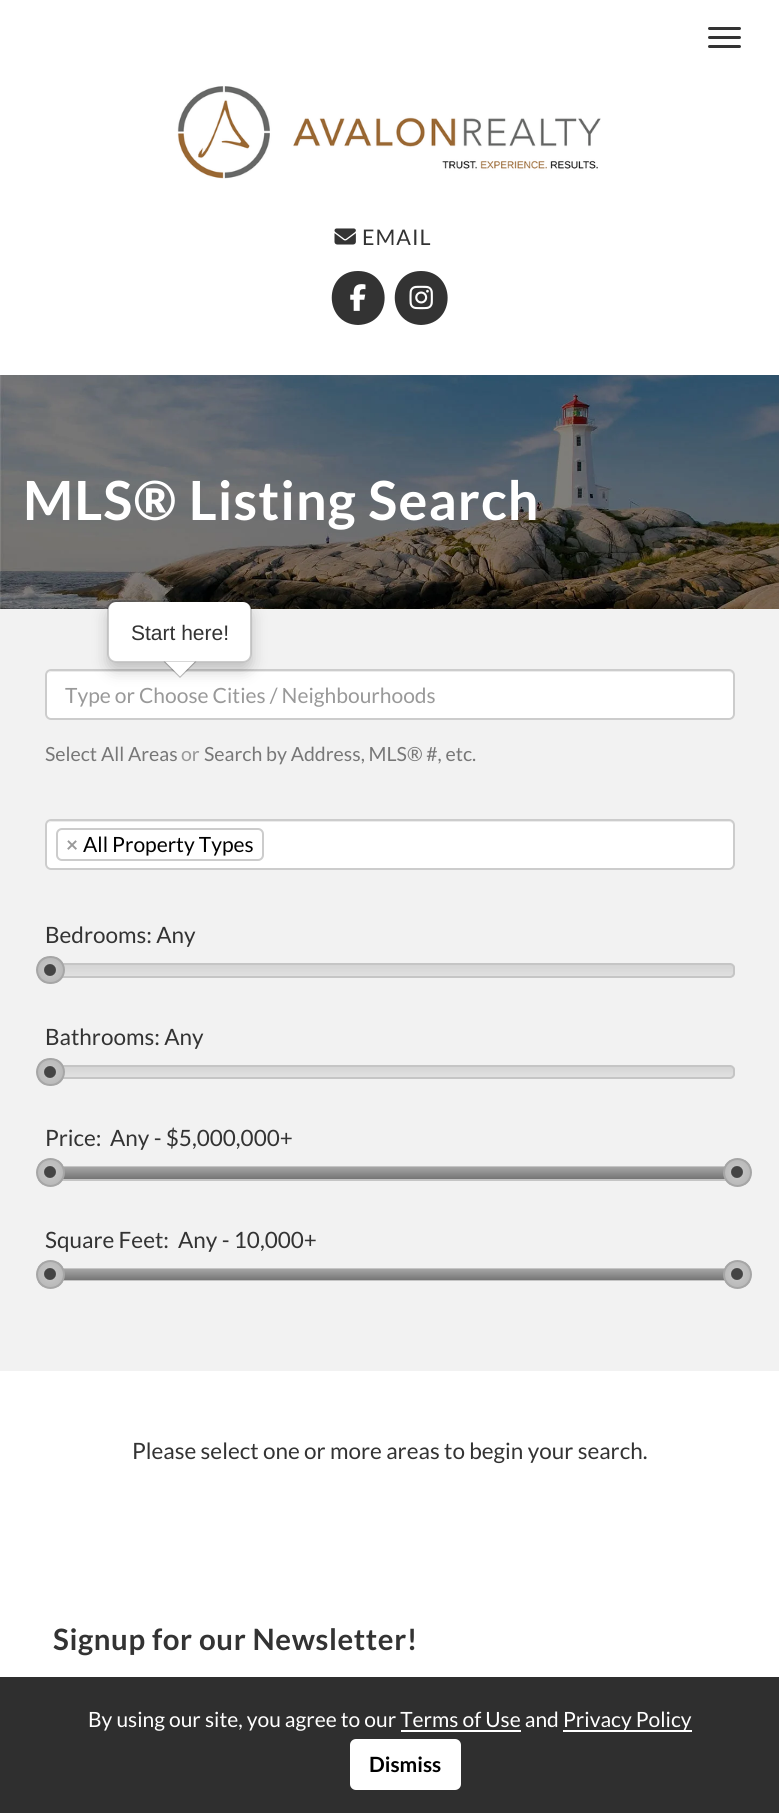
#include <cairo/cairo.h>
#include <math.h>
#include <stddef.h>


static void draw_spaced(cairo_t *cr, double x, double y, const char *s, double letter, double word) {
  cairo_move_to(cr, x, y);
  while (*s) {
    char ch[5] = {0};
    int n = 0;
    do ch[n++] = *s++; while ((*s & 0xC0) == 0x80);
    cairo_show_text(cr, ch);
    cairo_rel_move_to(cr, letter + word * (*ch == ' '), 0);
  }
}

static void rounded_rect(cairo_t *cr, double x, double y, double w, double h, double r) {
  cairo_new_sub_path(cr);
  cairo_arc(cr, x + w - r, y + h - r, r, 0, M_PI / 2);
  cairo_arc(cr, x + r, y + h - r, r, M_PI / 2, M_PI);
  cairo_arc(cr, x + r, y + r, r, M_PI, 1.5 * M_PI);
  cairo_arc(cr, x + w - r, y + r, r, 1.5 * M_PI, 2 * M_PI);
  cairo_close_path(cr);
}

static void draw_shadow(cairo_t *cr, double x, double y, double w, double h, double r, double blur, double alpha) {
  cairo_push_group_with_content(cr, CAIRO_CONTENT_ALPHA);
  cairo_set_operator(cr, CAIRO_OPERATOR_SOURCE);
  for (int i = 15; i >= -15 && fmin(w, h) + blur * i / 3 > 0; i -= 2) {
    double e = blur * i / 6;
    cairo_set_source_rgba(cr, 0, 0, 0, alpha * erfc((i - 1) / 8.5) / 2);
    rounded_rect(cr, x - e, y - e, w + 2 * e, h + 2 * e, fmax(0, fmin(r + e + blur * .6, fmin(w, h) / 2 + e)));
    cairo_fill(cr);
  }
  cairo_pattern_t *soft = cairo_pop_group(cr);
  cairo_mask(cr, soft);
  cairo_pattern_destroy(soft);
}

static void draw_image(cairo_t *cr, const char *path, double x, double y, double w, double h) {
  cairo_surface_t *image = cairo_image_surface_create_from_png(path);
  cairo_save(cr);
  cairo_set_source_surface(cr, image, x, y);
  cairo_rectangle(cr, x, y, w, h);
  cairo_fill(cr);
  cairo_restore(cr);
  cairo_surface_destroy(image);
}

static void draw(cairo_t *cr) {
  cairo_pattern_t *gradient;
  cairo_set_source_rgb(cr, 1, 1, 1);
  cairo_paint(cr);
  cairo_set_source_rgb(cr, 51 / 255.0, 51 / 255.0, 51 / 255.0);
  rounded_rect(cr, 708, 27, 33, 3, 1.5);
  cairo_fill(cr);
  rounded_rect(cr, 708, 36, 33, 3, 1.5);
  cairo_fill(cr);
  rounded_rect(cr, 708, 45, 33, 3, 1.5);
  cairo_fill(cr);
  draw_image(cr, "images/1.png", 177, 86, 424, 93);
  draw_image(cr, "images/2.png", 334, 228, 22, 17);
  cairo_new_path(cr);
  cairo_move_to(cr, 358, 325);
  cairo_curve_to(cr, 394, 324, 393, 271, 358, 271);
  cairo_curve_to(cr, 323, 271, 323, 324, 358, 325);
  cairo_close_path(cr);
  cairo_fill(cr);
  draw_image(cr, "images/3.png", 350, 284, 16, 27);
  cairo_new_path(cr);
  cairo_move_to(cr, 421, 325);
  cairo_curve_to(cr, 457, 324, 456, 271, 421, 271);
  cairo_curve_to(cr, 386, 271, 386, 324, 421, 325);
  cairo_close_path(cr);
  cairo_fill(cr);
  draw_image(cr, "images/4.png", 409, 285, 24, 25);
  draw_image(cr, "images/5.png", 0, 375, 779, 234);
  cairo_set_source_rgb(cr, 242 / 255.0, 242 / 255.0, 242 / 255.0);
  cairo_rectangle(cr, 0, 609, 779, 762);
  cairo_fill(cr);
  cairo_set_source_rgb(cr, 1, 1, 1);
  rounded_rect(cr, 45, 669, 690, 51, 6);
  cairo_fill(cr);
  cairo_set_source_rgb(cr, 236 / 255.0, 236 / 255.0, 236 / 255.0);
  cairo_new_path(cr);
  cairo_move_to(cr, 51, 672);
  cairo_line_to(cr, 729, 672);
  cairo_curve_to(cr, 731, 672, 734, 674, 734, 676);
  cairo_curve_to(cr, 734, 673, 732, 671, 729, 671);
  cairo_line_to(cr, 52, 671);
  cairo_curve_to(cr, 50, 671, 49, 672, 48, 673);
  cairo_close_path(cr);
  cairo_fill(cr);
  rounded_rect(cr, 46, 670, 688, 49, 5);
  cairo_set_source_rgb(cr, 204 / 255.0, 204 / 255.0, 204 / 255.0);
  cairo_stroke(cr);
  cairo_save(cr);
  cairo_set_fill_rule(cr, CAIRO_FILL_RULE_EVEN_ODD);
  cairo_new_path(cr);
  cairo_move_to(cr, 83, 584);
  cairo_line_to(cr, 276, 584);
  cairo_line_to(cr, 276, 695);
  cairo_line_to(cr, 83, 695);
  cairo_close_path(cr);
  cairo_move_to(cr, 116, 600);
  cairo_line_to(cr, 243, 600);
  cairo_curve_to(cr, 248, 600, 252, 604, 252, 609);
  cairo_line_to(cr, 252, 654);
  cairo_curve_to(cr, 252, 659, 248, 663, 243, 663);
  cairo_line_to(cr, 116, 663);
  cairo_curve_to(cr, 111, 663, 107, 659, 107, 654);
  cairo_line_to(cr, 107, 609);
  cairo_curve_to(cr, 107, 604, 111, 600, 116, 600);
  cairo_close_path(cr);
  cairo_clip(cr);
  cairo_set_source_rgb(cr, 0, 0, 0);
  draw_shadow(cr, 107, 608, 145, 63, 9, 7.5, 0.2);
  cairo_restore(cr);
  cairo_set_source_rgb(cr, 1, 1, 1);
  rounded_rect(cr, 108, 602, 143, 60, 8);
  cairo_fill(cr);
  rounded_rect(cr, 108, 601, 143, 61, 8);
  cairo_set_source_rgba(cr, 0, 0, 0, 0.2);
  cairo_stroke(cr);
  cairo_set_source_rgba(cr, 0, 0, 0, 0.25);
  cairo_new_path(cr);
  cairo_move_to(cr, 163.5, 661.5);
  cairo_line_to(cr, 196.5, 661.5);
  cairo_line_to(cr, 180, 678);
  cairo_close_path(cr);
  cairo_fill(cr);
  cairo_set_source_rgb(cr, 1, 1, 1);
  cairo_new_path(cr);
  cairo_move_to(cr, 165, 661.5);
  cairo_line_to(cr, 195, 661.5);
  cairo_line_to(cr, 180, 676.5);
  cairo_close_path(cr);
  cairo_fill(cr);
  rounded_rect(cr, 45, 819, 690, 51, 6);
  cairo_fill(cr);
  cairo_set_source_rgb(cr, 236 / 255.0, 236 / 255.0, 236 / 255.0);
  cairo_new_path(cr);
  cairo_move_to(cr, 51, 822);
  cairo_line_to(cr, 729, 822);
  cairo_curve_to(cr, 731, 822, 734, 824, 734, 826);
  cairo_curve_to(cr, 734, 823, 732, 821, 729, 821);
  cairo_line_to(cr, 52, 821);
  cairo_curve_to(cr, 50, 821, 49, 822, 48, 823);
  cairo_close_path(cr);
  cairo_fill(cr);
  rounded_rect(cr, 46, 820, 688, 49, 5);
  cairo_set_source_rgb(cr, 204 / 255.0, 204 / 255.0, 204 / 255.0);
  cairo_stroke(cr);
  rounded_rect(cr, 57, 829, 206, 31, 5);
  cairo_stroke(cr);
  cairo_save(cr);
  rounded_rect(cr, 45, 963, 690, 15, 5);
  cairo_clip(cr);
  gradient = cairo_pattern_create_linear(390, 965, 390, 977);
  cairo_pattern_add_color_stop_rgba(gradient, 0, 213 / 255.0, 213 / 255.0, 213 / 255.0, 1);
  cairo_pattern_add_color_stop_rgba(gradient, 1, 225 / 255.0, 225 / 255.0, 225 / 255.0, 1);
  cairo_set_source(cr, gradient);
  cairo_pattern_destroy(gradient);
  cairo_rectangle(cr, 63, 965, 672, 12);
  cairo_fill(cr);
  cairo_restore(cr);
  rounded_rect(cr, 46, 964, 688, 13, 4);
  cairo_set_source_rgb(cr, 197 / 255.0, 197 / 255.0, 197 / 255.0);
  cairo_stroke(cr);
  cairo_save(cr);
  rounded_rect(cr, 36, 956, 29, 28, 14);
  cairo_clip(cr);
  gradient = cairo_pattern_create_radial(50, 970, 0, 50, 970, 18);
  cairo_pattern_add_color_stop_rgba(gradient, 0, 68 / 255.0, 68 / 255.0, 68 / 255.0, 1);
  cairo_pattern_add_color_stop_rgba(gradient, 0.3, 68 / 255.0, 68 / 255.0, 68 / 255.0, 1);
  cairo_pattern_add_color_stop_rgba(gradient, 0.36, 194 / 255.0, 194 / 255.0, 194 / 255.0, 1);
  cairo_pattern_add_color_stop_rgba(gradient, 1, 179 / 255.0, 179 / 255.0, 179 / 255.0, 1);
  cairo_set_source(cr, gradient);
  cairo_pattern_destroy(gradient);
  cairo_rectangle(cr, 38, 957, 25, 26);
  cairo_fill(cr);
  cairo_restore(cr);
  rounded_rect(cr, 37, 957, 27, 26, 13);
  cairo_set_source_rgb(cr, 166 / 255.0, 166 / 255.0, 166 / 255.0);
  cairo_stroke(cr);
  cairo_save(cr);
  rounded_rect(cr, 45, 1065, 690, 14, 5);
  cairo_clip(cr);
  gradient = cairo_pattern_create_linear(390, 1067, 390, 1077);
  cairo_pattern_add_color_stop_rgba(gradient, 0, 213 / 255.0, 213 / 255.0, 213 / 255.0, 1);
  cairo_pattern_add_color_stop_rgba(gradient, 1, 225 / 255.0, 225 / 255.0, 225 / 255.0, 1);
  cairo_set_source(cr, gradient);
  cairo_pattern_destroy(gradient);
  cairo_rectangle(cr, 64, 1067, 671, 10);
  cairo_fill(cr);
  cairo_restore(cr);
  rounded_rect(cr, 46, 1066, 688, 12, 4);
  cairo_set_source_rgb(cr, 197 / 255.0, 197 / 255.0, 197 / 255.0);
  cairo_stroke(cr);
  cairo_save(cr);
  rounded_rect(cr, 36, 1058, 29, 28, 14);
  cairo_clip(cr);
  gradient = cairo_pattern_create_radial(50, 1072, 0, 50, 1072, 18);
  cairo_pattern_add_color_stop_rgba(gradient, 0, 68 / 255.0, 68 / 255.0, 68 / 255.0, 1);
  cairo_pattern_add_color_stop_rgba(gradient, 0.3, 68 / 255.0, 68 / 255.0, 68 / 255.0, 1);
  cairo_pattern_add_color_stop_rgba(gradient, 0.36, 194 / 255.0, 194 / 255.0, 194 / 255.0, 1);
  cairo_pattern_add_color_stop_rgba(gradient, 1, 179 / 255.0, 179 / 255.0, 179 / 255.0, 1);
  cairo_set_source(cr, gradient);
  cairo_pattern_destroy(gradient);
  cairo_rectangle(cr, 38, 1059, 25, 26);
  cairo_fill(cr);
  cairo_restore(cr);
  rounded_rect(cr, 37, 1059, 27, 26, 13);
  cairo_set_source_rgb(cr, 166 / 255.0, 166 / 255.0, 166 / 255.0);
  cairo_stroke(cr);
  cairo_rectangle(cr, 46, 1167, 688, 13);
  cairo_set_source_rgb(cr, 197 / 255.0, 197 / 255.0, 197 / 255.0);
  cairo_stroke(cr);
  cairo_save(cr);
  rounded_rect(cr, 36, 1158, 29, 29, 14.5);
  cairo_clip(cr);
  gradient = cairo_pattern_create_radial(50, 1172, 0, 50, 1172, 18);
  cairo_pattern_add_color_stop_rgba(gradient, 0, 68 / 255.0, 68 / 255.0, 68 / 255.0, 1);
  cairo_pattern_add_color_stop_rgba(gradient, 0.3, 68 / 255.0, 68 / 255.0, 68 / 255.0, 1);
  cairo_pattern_add_color_stop_rgba(gradient, 0.36, 194 / 255.0, 194 / 255.0, 194 / 255.0, 1);
  cairo_pattern_add_color_stop_rgba(gradient, 1, 179 / 255.0, 179 / 255.0, 179 / 255.0, 1);
  cairo_set_source(cr, gradient);
  cairo_pattern_destroy(gradient);
  cairo_rectangle(cr, 38, 1160, 25, 25);
  cairo_fill(cr);
  cairo_restore(cr);
  gradient = cairo_pattern_create_linear(390, 1167, 390, 1179);
  cairo_pattern_add_color_stop_rgba(gradient, 0, 166 / 255.0, 166 / 255.0, 166 / 255.0, 1);
  cairo_pattern_add_color_stop_rgba(gradient, 1, 117 / 255.0, 117 / 255.0, 117 / 255.0, 1);
  cairo_set_source(cr, gradient);
  cairo_pattern_destroy(gradient);
  cairo_rectangle(cr, 63, 1167, 662, 12);
  cairo_fill(cr);
  cairo_arc(cr, 50.5, 1172.5, 13.5, 0, 2 * M_PI);
  cairo_set_source_rgb(cr, 166 / 255.0, 166 / 255.0, 166 / 255.0);
  cairo_stroke(cr);
  cairo_save(cr);
  rounded_rect(cr, 723, 1158, 29, 29, 14.5);
  cairo_clip(cr);
  gradient = cairo_pattern_create_radial(737, 1172, 0, 737, 1172, 18);
  cairo_pattern_add_color_stop_rgba(gradient, 0, 68 / 255.0, 68 / 255.0, 68 / 255.0, 1);
  cairo_pattern_add_color_stop_rgba(gradient, 0.3, 68 / 255.0, 68 / 255.0, 68 / 255.0, 1);
  cairo_pattern_add_color_stop_rgba(gradient, 0.36, 194 / 255.0, 194 / 255.0, 194 / 255.0, 1);
  cairo_pattern_add_color_stop_rgba(gradient, 1, 179 / 255.0, 179 / 255.0, 179 / 255.0, 1);
  cairo_set_source(cr, gradient);
  cairo_pattern_destroy(gradient);
  cairo_rectangle(cr, 725, 1160, 25, 25);
  cairo_fill(cr);
  cairo_restore(cr);
  cairo_arc(cr, 737.5, 1172.5, 13.5, 0, 2 * M_PI);
  cairo_stroke(cr);
  cairo_rectangle(cr, 46, 1269, 688, 11);
  cairo_set_source_rgb(cr, 197 / 255.0, 197 / 255.0, 197 / 255.0);
  cairo_stroke(cr);
  cairo_save(cr);
  rounded_rect(cr, 36, 1260, 29, 29, 14.5);
  cairo_clip(cr);
  gradient = cairo_pattern_create_radial(50, 1274, 0, 50, 1274, 18);
  cairo_pattern_add_color_stop_rgba(gradient, 0, 68 / 255.0, 68 / 255.0, 68 / 255.0, 1);
  cairo_pattern_add_color_stop_rgba(gradient, 0.3, 68 / 255.0, 68 / 255.0, 68 / 255.0, 1);
  cairo_pattern_add_color_stop_rgba(gradient, 0.36, 194 / 255.0, 194 / 255.0, 194 / 255.0, 1);
  cairo_pattern_add_color_stop_rgba(gradient, 1, 179 / 255.0, 179 / 255.0, 179 / 255.0, 1);
  cairo_set_source(cr, gradient);
  cairo_pattern_destroy(gradient);
  cairo_rectangle(cr, 38, 1262, 25, 25);
  cairo_fill(cr);
  cairo_restore(cr);
  gradient = cairo_pattern_create_linear(390, 1269, 390, 1280);
  cairo_pattern_add_color_stop_rgba(gradient, 0, 166 / 255.0, 166 / 255.0, 166 / 255.0, 1);
  cairo_pattern_add_color_stop_rgba(gradient, 1, 117 / 255.0, 117 / 255.0, 117 / 255.0, 1);
  cairo_set_source(cr, gradient);
  cairo_pattern_destroy(gradient);
  cairo_rectangle(cr, 63, 1269, 662, 11);
  cairo_fill(cr);
  cairo_arc(cr, 50.5, 1274.5, 13.5, 0, 2 * M_PI);
  cairo_set_source_rgb(cr, 166 / 255.0, 166 / 255.0, 166 / 255.0);
  cairo_stroke(cr);
  cairo_save(cr);
  rounded_rect(cr, 723, 1260, 29, 29, 14.5);
  cairo_clip(cr);
  gradient = cairo_pattern_create_radial(737, 1274, 0, 737, 1274, 18);
  cairo_pattern_add_color_stop_rgba(gradient, 0, 68 / 255.0, 68 / 255.0, 68 / 255.0, 1);
  cairo_pattern_add_color_stop_rgba(gradient, 0.3, 68 / 255.0, 68 / 255.0, 68 / 255.0, 1);
  cairo_pattern_add_color_stop_rgba(gradient, 0.36, 194 / 255.0, 194 / 255.0, 194 / 255.0, 1);
  cairo_pattern_add_color_stop_rgba(gradient, 1, 179 / 255.0, 179 / 255.0, 179 / 255.0, 1);
  cairo_set_source(cr, gradient);
  cairo_pattern_destroy(gradient);
  cairo_rectangle(cr, 725, 1262, 25, 25);
  cairo_fill(cr);
  cairo_restore(cr);
  cairo_arc(cr, 737.5, 1274.5, 13.5, 0, 2 * M_PI);
  cairo_stroke(cr);
  cairo_set_source_rgb(cr, 47 / 255.0, 47 / 255.0, 47 / 255.0);
  cairo_rectangle(cr, 0, 1677, 779, 136);
  cairo_fill(cr);
  cairo_set_source_rgb(cr, 1, 1, 1);
  cairo_rectangle(cr, 563, 1730, 129, 2);
  cairo_fill(cr);
  cairo_rectangle(cr, 401, 1730, 120, 2);
  cairo_fill(cr);
  rounded_rect(cr, 350, 1739, 111, 51, 6);
  cairo_fill(cr);
  cairo_select_font_face(cr, "Lato", CAIRO_FONT_SLANT_NORMAL, CAIRO_FONT_WEIGHT_NORMAL);
  cairo_set_font_size(cr, 21.5);
  cairo_set_source_rgb(cr, 51 / 255.0, 51 / 255.0, 51 / 255.0);
  draw_spaced(cr, 362, 245, "EMAIL", 1, 0);
  cairo_select_font_face(cr, "Lato", CAIRO_FONT_SLANT_NORMAL, CAIRO_FONT_WEIGHT_BOLD);
  cairo_set_font_size(cr, 54);
  cairo_set_source_rgb(cr, 1, 1, 1);
  draw_spaced(cr, 23, 520, "MLS® Listing Search", 1.1, 0);
  cairo_select_font_face(cr, "Liberation Sans", CAIRO_FONT_SLANT_NORMAL, CAIRO_FONT_WEIGHT_NORMAL);
  cairo_set_font_size(cr, 21);
  cairo_set_source_rgb(cr, 51 / 255.0, 51 / 255.0, 51 / 255.0);
  cairo_move_to(cr, 131, 640);
  cairo_show_text(cr, "Start here!");
  cairo_select_font_face(cr, "Lato", CAIRO_FONT_SLANT_NORMAL, CAIRO_FONT_WEIGHT_NORMAL);
  cairo_set_source_rgb(cr, 153 / 255.0, 153 / 255.0, 153 / 255.0);
  cairo_move_to(cr, 65, 703);
  cairo_show_text(cr, "Type or Choose Cities / Neighbourhoods");
  cairo_set_font_size(cr, 19.5);
  cairo_set_source_rgb(cr, 119 / 255.0, 119 / 255.0, 119 / 255.0);
  cairo_move_to(cr, 45, 761);
  cairo_show_text(cr, "Select All Areas");
  cairo_set_source_rgb(cr, 153 / 255.0, 153 / 255.0, 153 / 255.0);
  cairo_move_to(cr, 181, 761);
  cairo_show_text(cr, "or");
  cairo_set_source_rgb(cr, 119 / 255.0, 119 / 255.0, 119 / 255.0);
  cairo_move_to(cr, 204, 761);
  cairo_show_text(cr, "Search by Address, MLS® #, etc.");
  cairo_select_font_face(cr, "Lato", CAIRO_FONT_SLANT_NORMAL, CAIRO_FONT_WEIGHT_BOLD);
  cairo_set_font_size(cr, 21);
  cairo_set_source_rgb(cr, 153 / 255.0, 153 / 255.0, 153 / 255.0);
  cairo_move_to(cr, 66, 852);
  cairo_show_text(cr, "×");
  cairo_select_font_face(cr, "Lato", CAIRO_FONT_SLANT_NORMAL, CAIRO_FONT_WEIGHT_NORMAL);
  cairo_set_source_rgb(cr, 0, 0, 0);
  cairo_move_to(cr, 83, 852);
  cairo_show_text(cr, "All Property Types");
  cairo_set_font_size(cr, 22.5);
  cairo_set_source_rgb(cr, 51 / 255.0, 51 / 255.0, 51 / 255.0);
  cairo_move_to(cr, 45, 943);
  cairo_show_text(cr, "Bedrooms: Any");
  cairo_move_to(cr, 45, 1045);
  cairo_show_text(cr, "Bathrooms: Any");
  cairo_move_to(cr, 45, 1146);
  cairo_show_text(cr, "Price:");
  cairo_move_to(cr, 110, 1146);
  cairo_show_text(cr, "Any - $5,000,000+");
  cairo_move_to(cr, 45, 1248);
  cairo_show_text(cr, "Square Feet:");
  cairo_move_to(cr, 178, 1248);
  cairo_show_text(cr, "Any - 10,000+");
  cairo_move_to(cr, 132, 1459);
  cairo_show_text(cr, "Please select one or more areas to begin your search.");
  cairo_select_font_face(cr, "Lato", CAIRO_FONT_SLANT_NORMAL, CAIRO_FONT_WEIGHT_BOLD);
  cairo_set_font_size(cr, 29.4);
  draw_spaced(cr, 53, 1650, "Signup for our Newsletter!", 0.6, 0);
  cairo_select_font_face(cr, "Lato", CAIRO_FONT_SLANT_NORMAL, CAIRO_FONT_WEIGHT_NORMAL);
  cairo_set_font_size(cr, 21);
  cairo_set_source_rgb(cr, 1, 1, 1);
  cairo_move_to(cr, 88, 1727);
  cairo_show_text(cr, "By using our site, you agree to our Terms of Use and");
  cairo_move_to(cr, 563, 1727);
  cairo_show_text(cr, "Privacy Policy");
  cairo_select_font_face(cr, "Lato", CAIRO_FONT_SLANT_NORMAL, CAIRO_FONT_WEIGHT_BOLD);
  cairo_set_source_rgb(cr, 0, 0, 0);
  cairo_move_to(cr, 369, 1772);
  cairo_show_text(cr, "Dismiss");
}

int main(void) {
  cairo_surface_t *surface = cairo_image_surface_create(CAIRO_FORMAT_RGB24, 779, 1813);
  cairo_t *cr = cairo_create(surface);
  cairo_font_options_t *options = cairo_font_options_create();
  cairo_font_options_set_hint_metrics(options, CAIRO_HINT_METRICS_OFF);
  cairo_font_options_set_hint_style(options, CAIRO_HINT_STYLE_NONE);
  cairo_set_font_options(cr, options);
  cairo_set_miter_limit(cr, 4);
  draw(cr);
  cairo_surface_write_to_png(surface, "out.png");
  cairo_font_options_destroy(options);
  cairo_destroy(cr);
  cairo_surface_destroy(surface);
  return 0;
}
